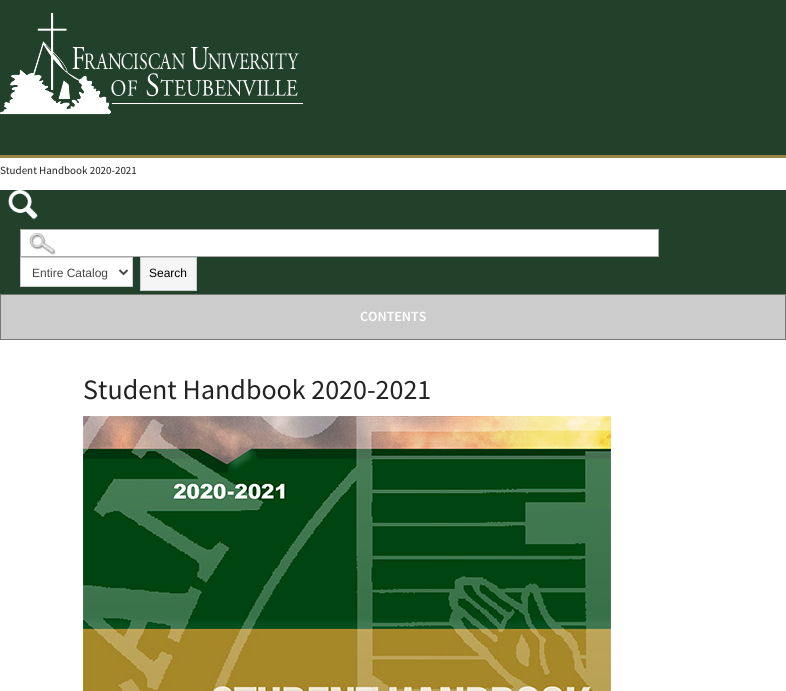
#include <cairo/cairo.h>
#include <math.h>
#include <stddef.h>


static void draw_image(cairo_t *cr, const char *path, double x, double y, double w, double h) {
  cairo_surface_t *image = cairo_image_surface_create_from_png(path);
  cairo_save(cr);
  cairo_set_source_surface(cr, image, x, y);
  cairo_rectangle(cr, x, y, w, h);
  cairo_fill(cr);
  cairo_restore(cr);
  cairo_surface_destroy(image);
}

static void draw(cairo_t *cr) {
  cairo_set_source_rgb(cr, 1, 1, 1);
  cairo_paint(cr);
  cairo_set_source_rgb(cr, 33 / 255.0, 65 / 255.0, 42 / 255.0);
  cairo_rectangle(cr, 0, 0, 786, 155);
  cairo_fill(cr);
  cairo_set_source_rgb(cr, 153 / 255.0, 134 / 255.0, 67 / 255.0);
  cairo_rectangle(cr, 0, 155, 786, 3);
  cairo_fill(cr);
  draw_image(cr, "images/1.png", 0, 12, 303, 103);
  cairo_set_source_rgb(cr, 33 / 255.0, 65 / 255.0, 42 / 255.0);
  cairo_rectangle(cr, 0, 190, 786, 104);
  cairo_fill(cr);
  draw_image(cr, "images/2.png", 8, 190, 30, 30);
  cairo_set_source_rgb(cr, 1, 1, 1);
  cairo_rectangle(cr, 21, 230, 637, 26);
  cairo_fill(cr);
  draw_image(cr, "images/3.png", 29, 232, 27, 23);
  cairo_rectangle(cr, 20.5, 229.5, 638, 27);
  cairo_set_source_rgb(cr, 169 / 255.0, 169 / 255.0, 169 / 255.0);
  cairo_set_line_width(cr, 1);
  cairo_stroke(cr);
  cairo_set_source_rgb(cr, 1, 1, 1);
  cairo_rectangle(cr, 20.5, 257.5, 112, 29);
  cairo_fill_preserve(cr);
  cairo_set_source_rgb(cr, 204 / 255.0, 204 / 255.0, 204 / 255.0);
  cairo_stroke(cr);
  cairo_new_path(cr);
  cairo_move_to(cr, 119.5, 270);
  cairo_line_to(cr, 123.5, 274);
  cairo_line_to(cr, 127.5, 270);
  cairo_set_source_rgb(cr, 71 / 255.0, 71 / 255.0, 71 / 255.0);
  cairo_set_line_width(cr, 2);
  cairo_stroke(cr);
  cairo_set_source_rgb(cr, 245 / 255.0, 245 / 255.0, 245 / 255.0);
  cairo_rectangle(cr, 140.5, 257.5, 56, 33);
  cairo_fill_preserve(cr);
  cairo_set_source_rgb(cr, 204 / 255.0, 204 / 255.0, 204 / 255.0);
  cairo_set_line_width(cr, 1);
  cairo_stroke(cr);
  cairo_rectangle(cr, 0.5, 294.5, 785, 45);
  cairo_fill_preserve(cr);
  cairo_set_source_rgb(cr, 119 / 255.0, 119 / 255.0, 119 / 255.0);
  cairo_stroke(cr);
  draw_image(cr, "images/4.png", 83, 416, 528, 275);
  cairo_select_font_face(cr, "Source Sans Pro", CAIRO_FONT_SLANT_NORMAL, CAIRO_FONT_WEIGHT_NORMAL);
  cairo_set_font_size(cr, 11);
  cairo_set_source_rgb(cr, 34 / 255.0, 34 / 255.0, 34 / 255.0);
  cairo_move_to(cr, 0, 174);
  cairo_show_text(cr, "Student Handbook 2020-2021");
  cairo_select_font_face(cr, "Liberation Sans", CAIRO_FONT_SLANT_NORMAL, CAIRO_FONT_WEIGHT_NORMAL);
  cairo_set_font_size(cr, 12);
  cairo_set_source_rgb(cr, 71 / 255.0, 71 / 255.0, 71 / 255.0);
  cairo_move_to(cr, 32, 277);
  cairo_show_text(cr, "Entire Catalog");
  cairo_set_source_rgb(cr, 0, 0, 0);
  cairo_move_to(cr, 149, 277);
  cairo_show_text(cr, "Search");
  cairo_select_font_face(cr, "Source Sans Pro SemiBold", CAIRO_FONT_SLANT_NORMAL, CAIRO_FONT_WEIGHT_NORMAL);
  cairo_set_font_size(cr, 14);
  cairo_set_source_rgb(cr, 1, 1, 1);
  cairo_move_to(cr, 360, 321);
  cairo_show_text(cr, "CONTENTS");
  cairo_select_font_face(cr, "Source Sans Pro", CAIRO_FONT_SLANT_NORMAL, CAIRO_FONT_WEIGHT_NORMAL);
  cairo_set_font_size(cr, 28);
  cairo_set_source_rgb(cr, 34 / 255.0, 34 / 255.0, 34 / 255.0);
  cairo_move_to(cr, 83, 399);
  cairo_show_text(cr, "Student Handbook 2020-2021");
}

int main(void) {
  cairo_surface_t *surface = cairo_image_surface_create(CAIRO_FORMAT_RGB24, 786, 691);
  cairo_t *cr = cairo_create(surface);
  cairo_font_options_t *options = cairo_font_options_create();
  cairo_font_options_set_hint_metrics(options, CAIRO_HINT_METRICS_OFF);
  cairo_font_options_set_hint_style(options, CAIRO_HINT_STYLE_NONE);
  cairo_set_font_options(cr, options);
  cairo_set_miter_limit(cr, 4);
  draw(cr);
  cairo_surface_write_to_png(surface, "out.png");
  cairo_font_options_destroy(options);
  cairo_destroy(cr);
  cairo_surface_destroy(surface);
  return 0;
}
